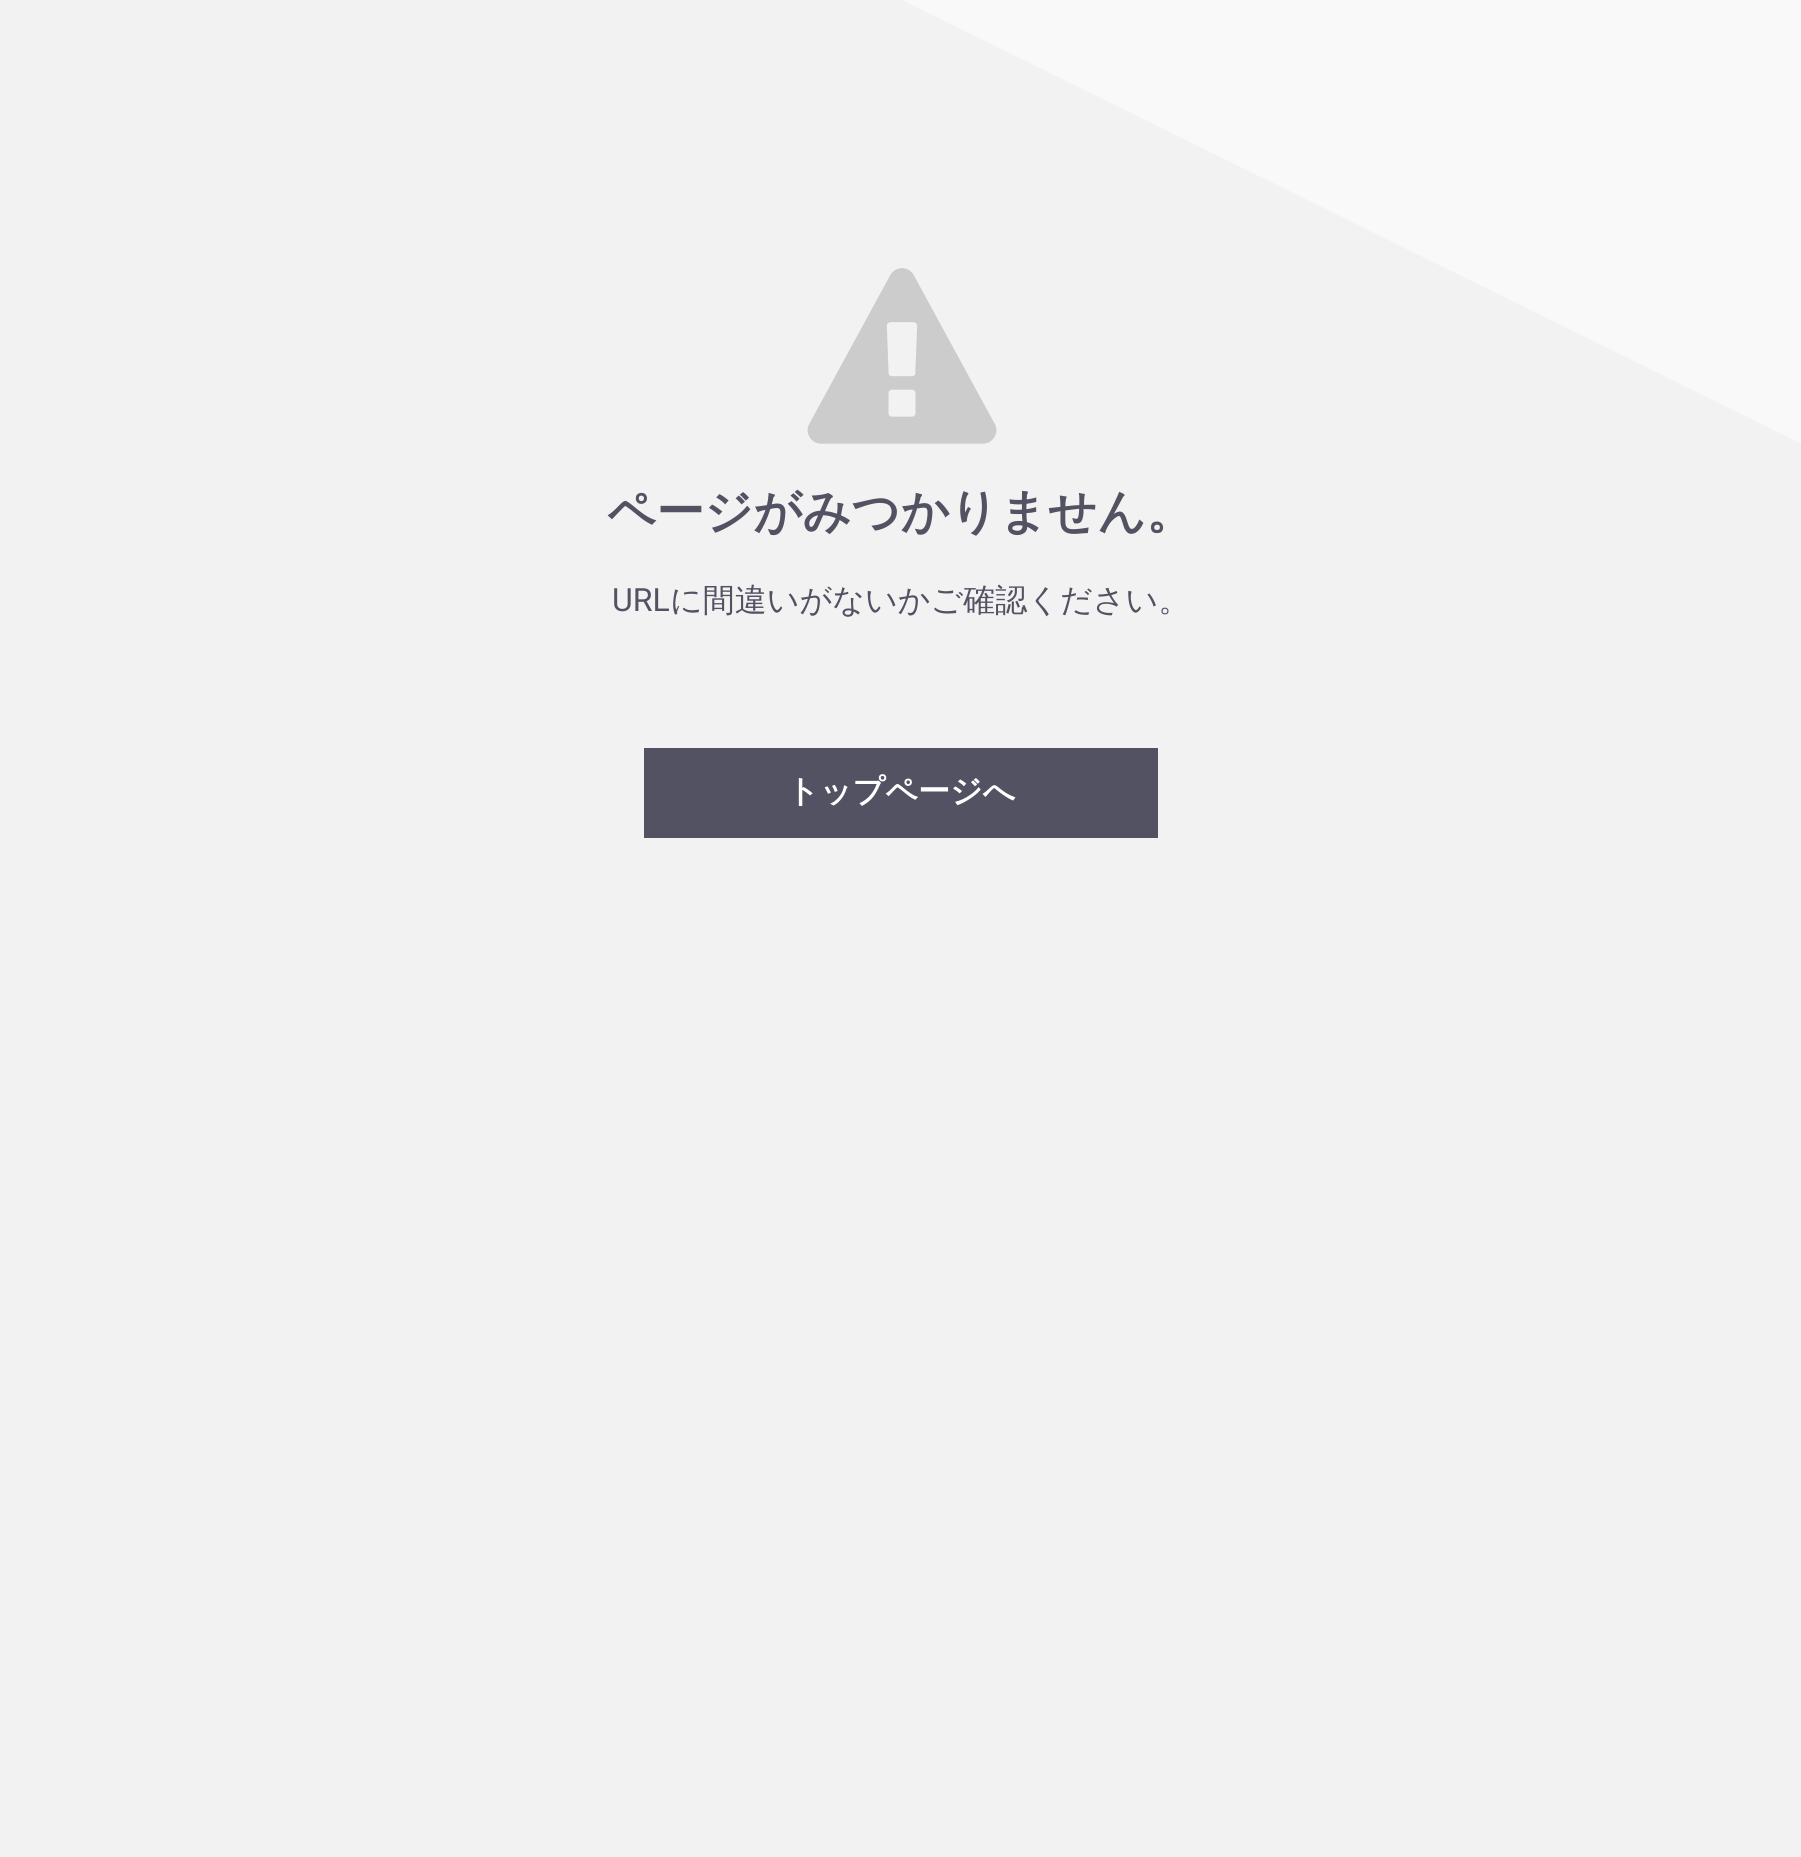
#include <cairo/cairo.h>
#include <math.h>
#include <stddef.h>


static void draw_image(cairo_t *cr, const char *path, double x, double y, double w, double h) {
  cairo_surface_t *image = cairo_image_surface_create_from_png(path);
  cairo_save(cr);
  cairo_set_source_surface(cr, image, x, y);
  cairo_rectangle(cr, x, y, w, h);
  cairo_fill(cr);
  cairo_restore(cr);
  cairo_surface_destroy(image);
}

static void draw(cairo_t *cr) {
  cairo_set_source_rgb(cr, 242 / 255.0, 242 / 255.0, 242 / 255.0);
  cairo_paint(cr);
  draw_image(cr, "images/1.png", 903, 0, 898, 443);
  draw_image(cr, "images/2.png", 807, 268, 190, 176);
  cairo_set_source_rgb(cr, 82 / 255.0, 82 / 255.0, 99 / 255.0);
  cairo_rectangle(cr, 644, 748, 514, 90);
  cairo_fill(cr);
  cairo_select_font_face(cr, "WenQuanYi Zen Hei", CAIRO_FONT_SLANT_NORMAL, CAIRO_FONT_WEIGHT_BOLD);
  cairo_set_font_size(cr, 48);
  cairo_move_to(cr, 607, 528);
  cairo_show_text(cr, "ページがみつかりません。");
  cairo_select_font_face(cr, "Roboto", CAIRO_FONT_SLANT_NORMAL, CAIRO_FONT_WEIGHT_NORMAL);
  cairo_set_font_size(cr, 32);
  cairo_move_to(cr, 612, 611);
  cairo_show_text(cr, "URL");
  cairo_select_font_face(cr, "WenQuanYi Zen Hei Medium", CAIRO_FONT_SLANT_NORMAL, CAIRO_FONT_WEIGHT_NORMAL);
  cairo_move_to(cr, 670, 611);
  cairo_show_text(cr, "に間違いがないかご確認ください。");
  cairo_select_font_face(cr, "WenQuanYi Zen Hei", CAIRO_FONT_SLANT_NORMAL, CAIRO_FONT_WEIGHT_BOLD);
  cairo_set_source_rgb(cr, 1, 1, 1);
  cairo_move_to(cr, 787, 802);
  cairo_show_text(cr, "トップページへ");
}

int main(void) {
  cairo_surface_t *surface = cairo_image_surface_create(CAIRO_FORMAT_RGB24, 1801, 1857);
  cairo_t *cr = cairo_create(surface);
  cairo_font_options_t *options = cairo_font_options_create();
  cairo_font_options_set_hint_metrics(options, CAIRO_HINT_METRICS_OFF);
  cairo_font_options_set_hint_style(options, CAIRO_HINT_STYLE_NONE);
  cairo_set_font_options(cr, options);
  cairo_set_miter_limit(cr, 4);
  draw(cr);
  cairo_surface_write_to_png(surface, "out.png");
  cairo_font_options_destroy(options);
  cairo_destroy(cr);
  cairo_surface_destroy(surface);
  return 0;
}
